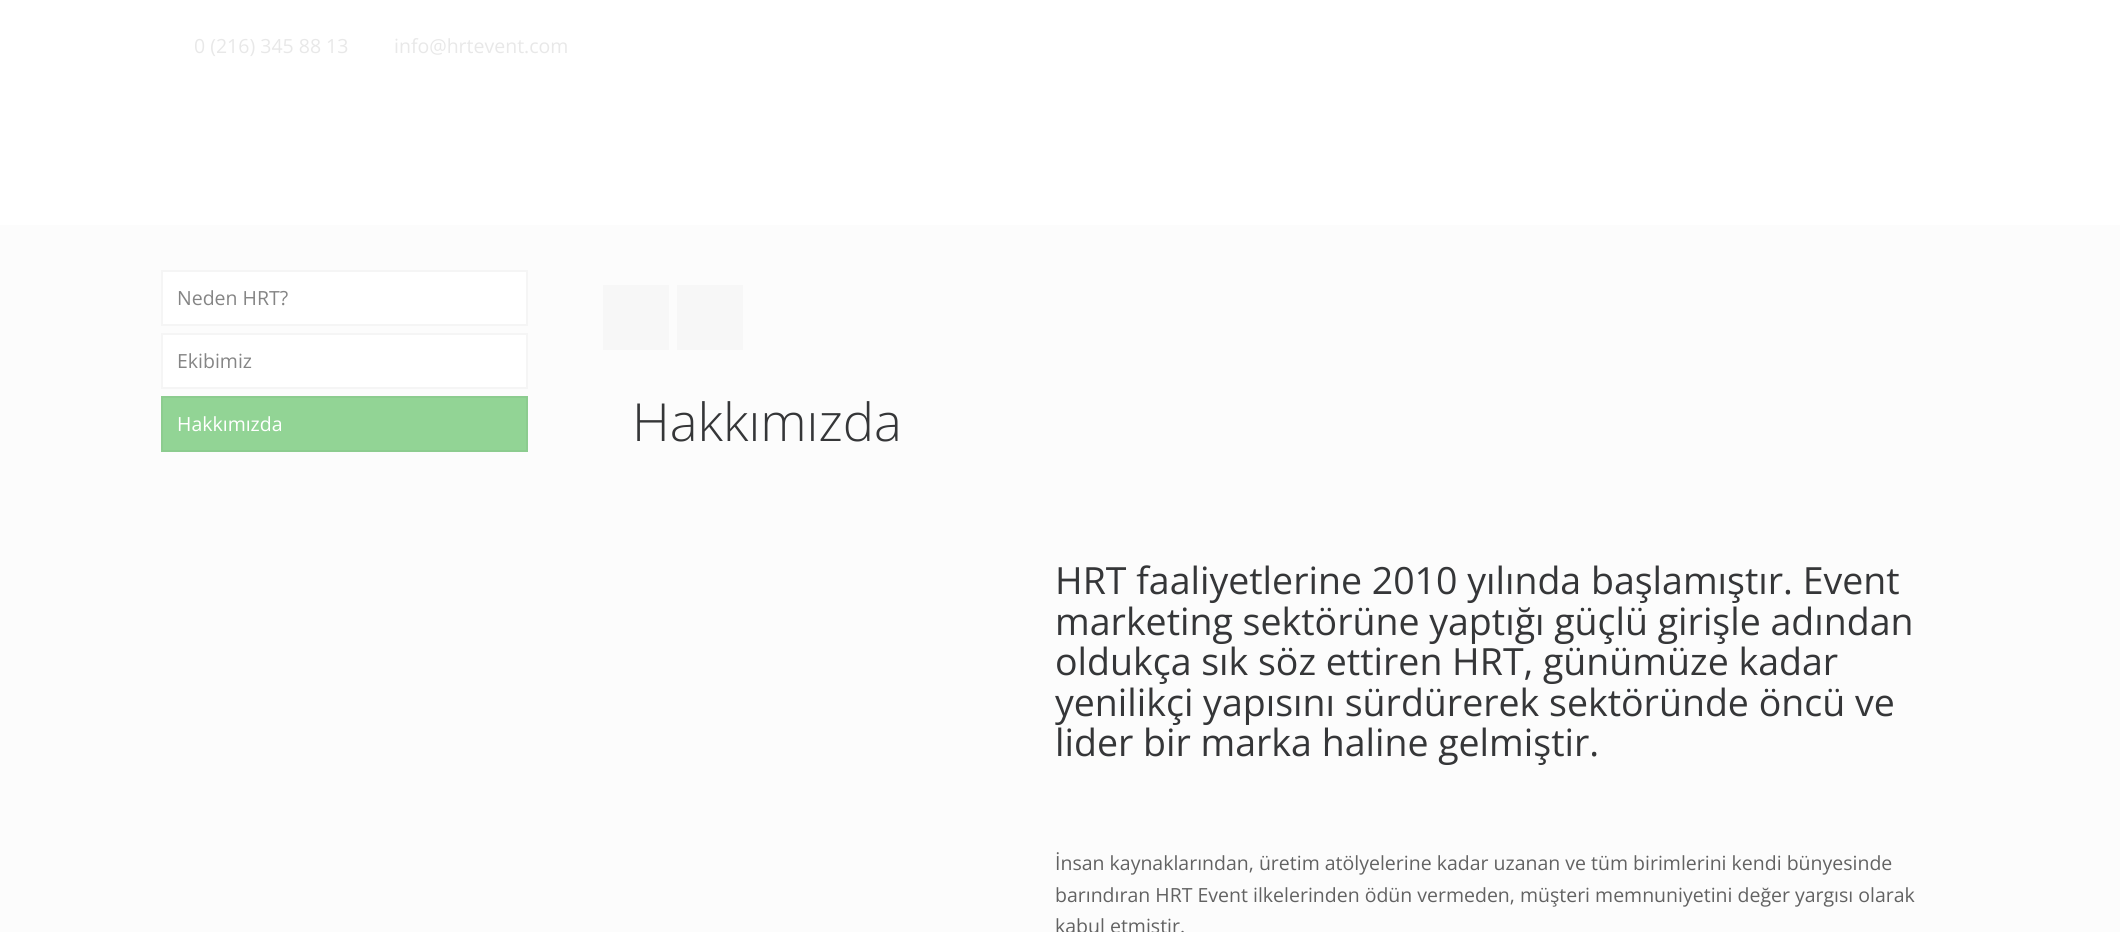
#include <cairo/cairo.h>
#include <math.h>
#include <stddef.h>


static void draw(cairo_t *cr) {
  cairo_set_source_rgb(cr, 252 / 255.0, 252 / 255.0, 252 / 255.0);
  cairo_paint(cr);
  cairo_set_source_rgb(cr, 1, 1, 1);
  cairo_rectangle(cr, 0, 0, 2120, 225);
  cairo_fill(cr);
  cairo_rectangle(cr, 162, 271, 365, 54);
  cairo_fill_preserve(cr);
  cairo_set_source_rgb(cr, 245 / 255.0, 245 / 255.0, 245 / 255.0);
  cairo_stroke(cr);
  cairo_set_source_rgb(cr, 1, 1, 1);
  cairo_rectangle(cr, 162, 334, 365, 54);
  cairo_fill_preserve(cr);
  cairo_set_source_rgb(cr, 245 / 255.0, 245 / 255.0, 245 / 255.0);
  cairo_stroke(cr);
  cairo_set_source_rgb(cr, 146 / 255.0, 212 / 255.0, 149 / 255.0);
  cairo_rectangle(cr, 162, 397, 365, 54);
  cairo_fill_preserve(cr);
  cairo_set_source_rgb(cr, 140 / 255.0, 204 / 255.0, 143 / 255.0);
  cairo_stroke(cr);
  cairo_set_source_rgb(cr, 247 / 255.0, 247 / 255.0, 247 / 255.0);
  cairo_rectangle(cr, 603, 285, 66, 65);
  cairo_fill(cr);
  cairo_rectangle(cr, 677, 285, 66, 65);
  cairo_fill(cr);
  cairo_select_font_face(cr, "Open Sans", CAIRO_FONT_SLANT_NORMAL, CAIRO_FONT_WEIGHT_NORMAL);
  cairo_set_font_size(cr, 19.5);
  cairo_set_source_rgb(cr, 232 / 255.0, 232 / 255.0, 232 / 255.0);
  cairo_move_to(cr, 194, 53);
  cairo_show_text(cr, "0 (216) 345 88 13");
  cairo_move_to(cr, 394, 53);
  cairo_show_text(cr, "info@hrtevent.com");
  cairo_set_source_rgb(cr, 133 / 255.0, 133 / 255.0, 133 / 255.0);
  cairo_move_to(cr, 177, 305);
  cairo_show_text(cr, "Neden HRT?");
  cairo_move_to(cr, 177, 368);
  cairo_show_text(cr, "Ekibimiz");
  cairo_set_source_rgb(cr, 1, 1, 1);
  cairo_move_to(cr, 177, 431);
  cairo_show_text(cr, "Hakkımızda");
  cairo_select_font_face(cr, "Open Sans Light", CAIRO_FONT_SLANT_NORMAL, CAIRO_FONT_WEIGHT_NORMAL);
  cairo_set_font_size(cr, 52.5);
  cairo_set_source_rgb(cr, 53 / 255.0, 54 / 255.0, 56 / 255.0);
  cairo_move_to(cr, 632, 441);
  cairo_show_text(cr, "Hakkımızda");
  cairo_select_font_face(cr, "Open Sans", CAIRO_FONT_SLANT_NORMAL, CAIRO_FONT_WEIGHT_NORMAL);
  cairo_set_font_size(cr, 37.5);
  cairo_move_to(cr, 1055, 594);
  cairo_show_text(cr, "HRT faaliyetlerine 2010 yılında başlamıştır. Event");
  cairo_move_to(cr, 1055, 635);
  cairo_show_text(cr, "marketing sektörüne yaptığı güçlü girişle adından");
  cairo_move_to(cr, 1055, 675);
  cairo_show_text(cr, "oldukça sık söz ettiren HRT, günümüze kadar");
  cairo_move_to(cr, 1055, 716);
  cairo_show_text(cr, "yenilikçi yapısını sürdürerek sektöründe öncü ve");
  cairo_move_to(cr, 1055, 756);
  cairo_show_text(cr, "lider bir marka haline gelmiştir.");
  cairo_set_font_size(cr, 19.5);
  cairo_set_source_rgb(cr, 98 / 255.0, 98 / 255.0, 98 / 255.0);
  cairo_move_to(cr, 1055, 870);
  cairo_show_text(cr, "İnsan kaynaklarından, üretim atölyelerine kadar uzanan ve tüm birimlerini kendi bünyesinde");
  cairo_move_to(cr, 1055, 902);
  cairo_show_text(cr, "barındıran HRT Event ilkelerinden ödün vermeden, müşteri memnuniyetini değer yargısı olarak");
  cairo_move_to(cr, 1055, 933);
  cairo_show_text(cr, "kabul etmiştir.");
}

int main(void) {
  cairo_surface_t *surface = cairo_image_surface_create(CAIRO_FORMAT_RGB24, 2120, 932);
  cairo_t *cr = cairo_create(surface);
  cairo_font_options_t *options = cairo_font_options_create();
  cairo_font_options_set_hint_metrics(options, CAIRO_HINT_METRICS_OFF);
  cairo_font_options_set_hint_style(options, CAIRO_HINT_STYLE_NONE);
  cairo_set_font_options(cr, options);
  cairo_set_miter_limit(cr, 4);
  draw(cr);
  cairo_surface_write_to_png(surface, "out.png");
  cairo_font_options_destroy(options);
  cairo_destroy(cr);
  cairo_surface_destroy(surface);
  return 0;
}
